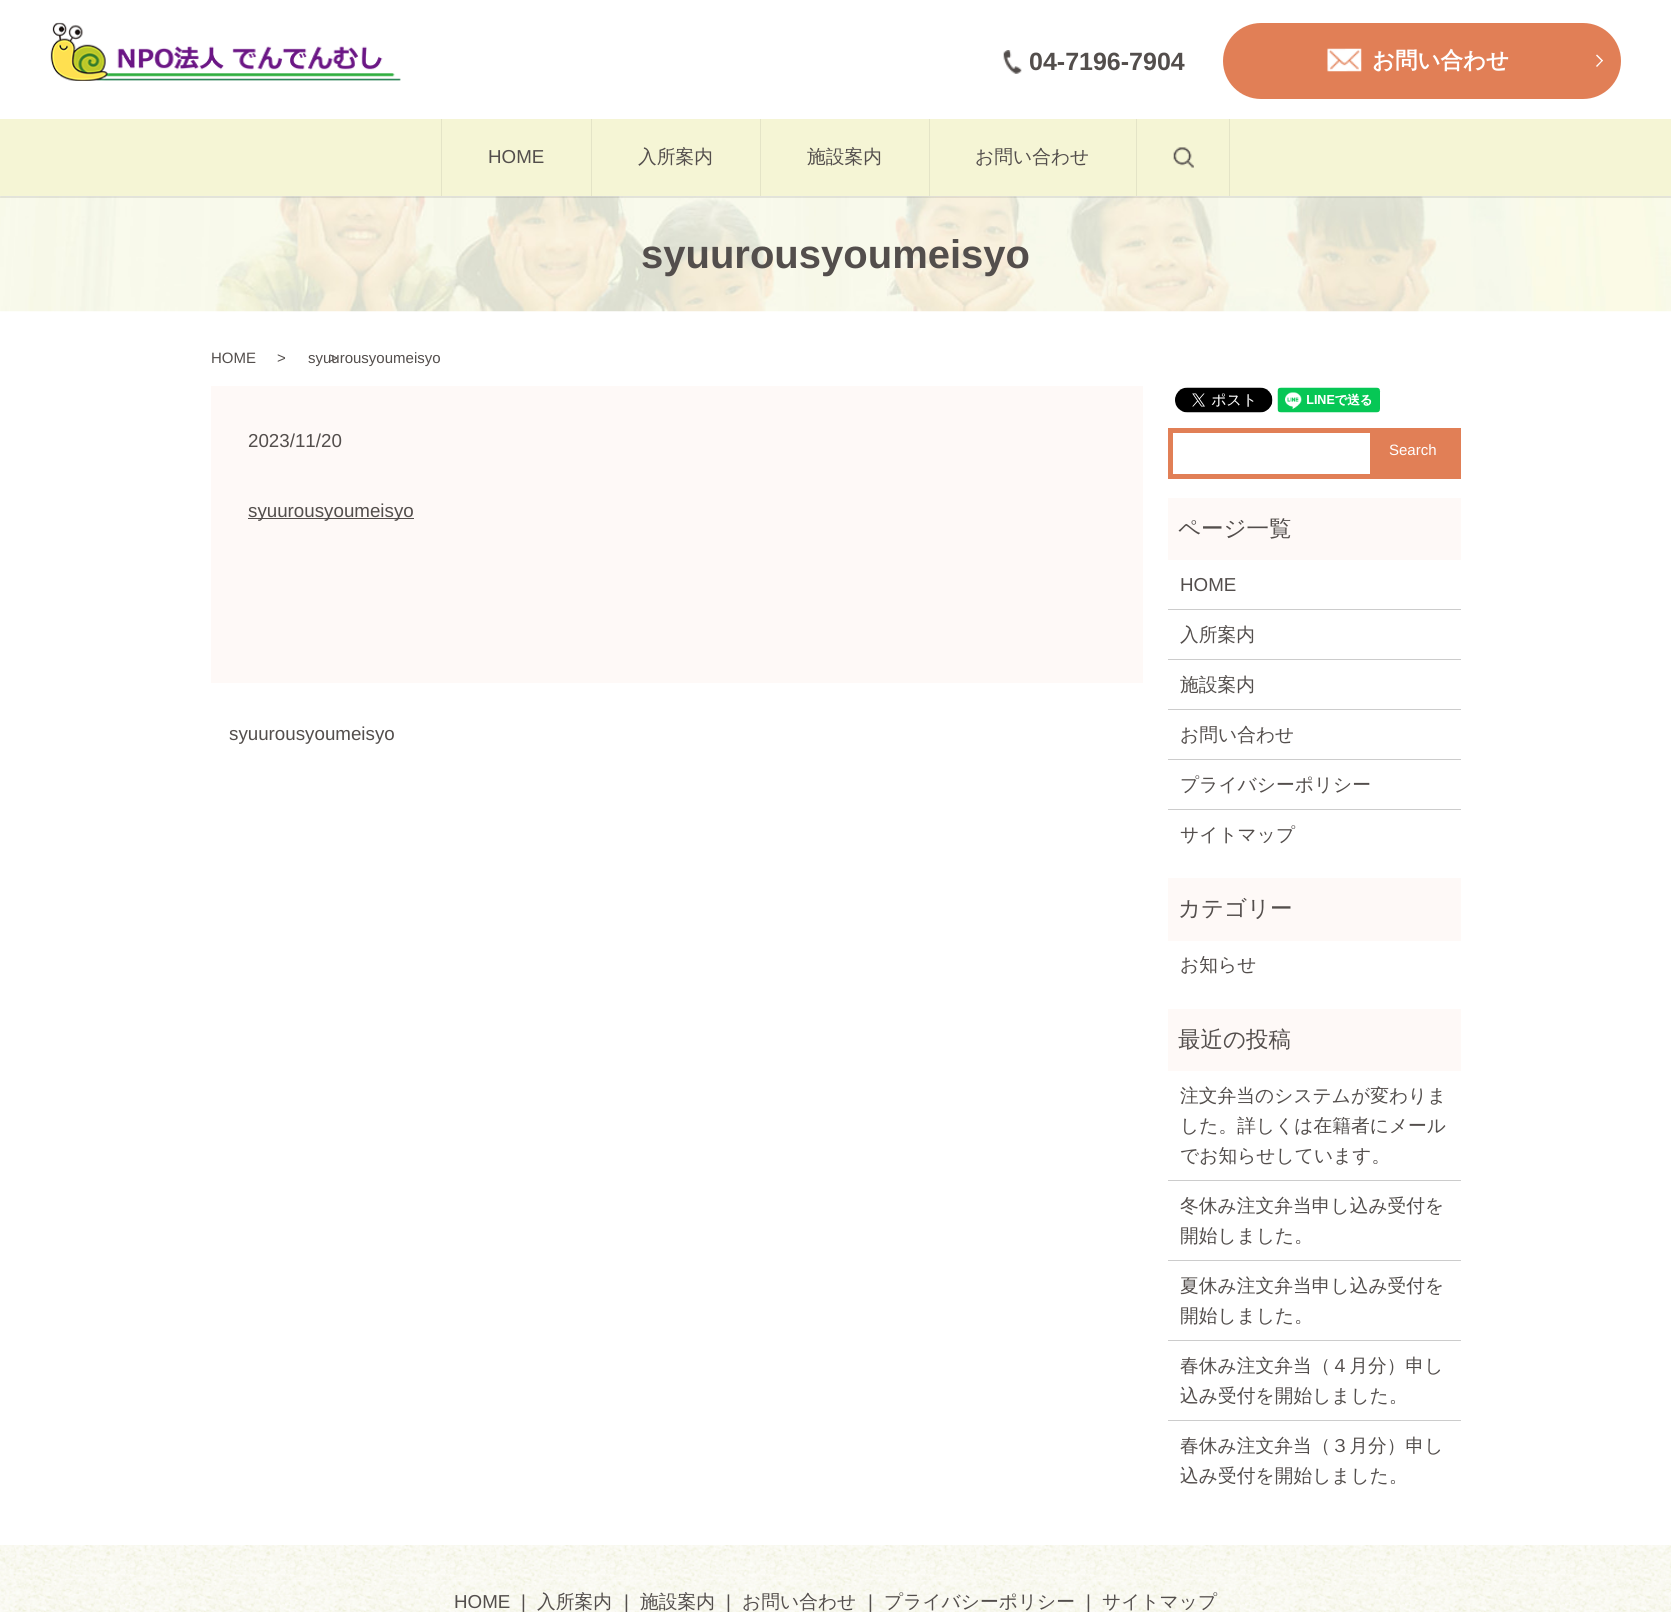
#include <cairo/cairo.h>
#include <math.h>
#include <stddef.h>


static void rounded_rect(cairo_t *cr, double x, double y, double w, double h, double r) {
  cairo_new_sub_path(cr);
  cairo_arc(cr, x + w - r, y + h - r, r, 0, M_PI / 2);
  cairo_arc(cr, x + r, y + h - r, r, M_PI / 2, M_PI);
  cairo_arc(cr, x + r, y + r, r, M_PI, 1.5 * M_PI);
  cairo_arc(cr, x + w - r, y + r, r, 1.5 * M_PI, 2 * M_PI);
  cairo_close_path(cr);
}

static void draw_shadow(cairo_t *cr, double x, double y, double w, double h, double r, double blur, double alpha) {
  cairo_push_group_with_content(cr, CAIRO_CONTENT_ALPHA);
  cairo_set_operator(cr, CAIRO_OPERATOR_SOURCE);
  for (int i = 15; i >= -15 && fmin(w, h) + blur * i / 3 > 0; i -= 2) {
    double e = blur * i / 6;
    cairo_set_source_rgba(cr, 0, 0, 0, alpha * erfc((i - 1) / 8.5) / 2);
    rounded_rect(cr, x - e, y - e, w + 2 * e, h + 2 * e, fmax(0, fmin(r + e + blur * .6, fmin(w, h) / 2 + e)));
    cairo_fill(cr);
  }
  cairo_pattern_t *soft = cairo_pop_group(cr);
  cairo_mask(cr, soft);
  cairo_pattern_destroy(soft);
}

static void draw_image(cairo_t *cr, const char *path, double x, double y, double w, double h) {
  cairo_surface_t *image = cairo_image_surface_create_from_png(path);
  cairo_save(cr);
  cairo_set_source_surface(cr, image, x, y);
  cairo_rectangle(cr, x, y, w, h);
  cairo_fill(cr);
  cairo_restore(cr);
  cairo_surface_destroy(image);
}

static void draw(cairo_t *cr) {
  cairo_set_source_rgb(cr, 1, 1, 1);
  cairo_paint(cr);
  draw_image(cr, "images/5.png", 0, 196, 1671, 116);
  cairo_save(cr);
  cairo_rectangle(cr, 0, 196, 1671, 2);
  cairo_clip(cr);
  cairo_set_source_rgb(cr, 0, 0, 0);
  draw_shadow(cr, 0, 1, 1671, 197, 0, 0.5, 0.1);
  cairo_restore(cr);
  draw_image(cr, "images/1.png", 50, 22, 351, 59);
  draw_image(cr, "images/2.png", 1003, 50, 19, 24);
  cairo_set_source_rgb(cr, 225 / 255.0, 127 / 255.0, 86 / 255.0);
  rounded_rect(cr, 1223, 23, 398, 76, 38);
  cairo_fill(cr);
  draw_image(cr, "images/3.png", 1327, 48, 35, 24);
  cairo_set_source_rgb(cr, 1, 1, 1);
  cairo_new_path(cr);
  cairo_move_to(cr, 1597, 54.5);
  cairo_line_to(cr, 1603, 60.5);
  cairo_line_to(cr, 1602, 61.5);
  cairo_line_to(cr, 1596, 55.5);
  cairo_close_path(cr);
  cairo_fill(cr);
  cairo_new_path(cr);
  cairo_move_to(cr, 1602, 60);
  cairo_line_to(cr, 1603, 60.5);
  cairo_line_to(cr, 1597, 67);
  cairo_line_to(cr, 1596, 66);
  cairo_close_path(cr);
  cairo_fill(cr);
  cairo_set_source_rgb(cr, 245 / 255.0, 245 / 255.0, 213 / 255.0);
  cairo_rectangle(cr, 0, 119, 1671, 77);
  cairo_fill(cr);
  cairo_set_source_rgb(cr, 228 / 255.0, 228 / 255.0, 199 / 255.0);
  cairo_rectangle(cr, 441, 119, 1, 77);
  cairo_fill(cr);
  cairo_rectangle(cr, 591, 119, 1, 77);
  cairo_fill(cr);
  cairo_rectangle(cr, 760, 119, 1, 77);
  cairo_fill(cr);
  cairo_rectangle(cr, 929, 119, 1, 77);
  cairo_fill(cr);
  cairo_rectangle(cr, 1136, 119, 1, 77);
  cairo_fill(cr);
  draw_image(cr, "images/4.png", 1173, 147, 21, 21);
  cairo_rectangle(cr, 1229, 119, 1, 77);
  cairo_fill(cr);
  cairo_set_source_rgb(cr, 254 / 255.0, 249 / 255.0, 247 / 255.0);
  cairo_rectangle(cr, 211, 386, 932, 297);
  cairo_fill(cr);
  cairo_set_source_rgb(cr, 83 / 255.0, 78 / 255.0, 76 / 255.0);
  cairo_rectangle(cr, 248, 518, 166, 1);
  cairo_fill(cr);
  draw_image(cr, "images/6.png", 1175, 387, 98, 26);
  draw_image(cr, "images/7.png", 1277, 387, 104, 26);
  cairo_set_source_rgb(cr, 225 / 255.0, 127 / 255.0, 86 / 255.0);
  cairo_rectangle(cr, 1168, 428, 293, 51);
  cairo_fill(cr);
  cairo_set_source_rgb(cr, 1, 1, 1);
  cairo_rectangle(cr, 1173, 433, 197, 41);
  cairo_fill(cr);
  cairo_set_source_rgb(cr, 254 / 255.0, 249 / 255.0, 247 / 255.0);
  cairo_rectangle(cr, 1168, 498, 293, 62);
  cairo_fill(cr);
  cairo_set_source_rgb(cr, 204 / 255.0, 204 / 255.0, 204 / 255.0);
  cairo_rectangle(cr, 1168, 609, 293, 1);
  cairo_fill(cr);
  cairo_rectangle(cr, 1168, 659, 293, 1);
  cairo_fill(cr);
  cairo_rectangle(cr, 1168, 709, 293, 1);
  cairo_fill(cr);
  cairo_rectangle(cr, 1168, 759, 293, 1);
  cairo_fill(cr);
  cairo_rectangle(cr, 1168, 809, 293, 1);
  cairo_fill(cr);
  cairo_set_source_rgb(cr, 254 / 255.0, 249 / 255.0, 247 / 255.0);
  cairo_rectangle(cr, 1168, 878, 293, 63);
  cairo_fill(cr);
  cairo_rectangle(cr, 1168, 1009, 293, 62);
  cairo_fill(cr);
  cairo_set_source_rgb(cr, 204 / 255.0, 204 / 255.0, 204 / 255.0);
  cairo_rectangle(cr, 1168, 1180, 293, 1);
  cairo_fill(cr);
  cairo_rectangle(cr, 1168, 1260, 293, 1);
  cairo_fill(cr);
  cairo_rectangle(cr, 1168, 1340, 293, 1);
  cairo_fill(cr);
  cairo_rectangle(cr, 1168, 1420, 293, 1);
  cairo_fill(cr);
  draw_image(cr, "images/8.png", 0, 1545, 1671, 67);
  cairo_select_font_face(cr, "Liberation Sans", CAIRO_FONT_SLANT_NORMAL, CAIRO_FONT_WEIGHT_BOLD);
  cairo_set_font_size(cr, 25);
  cairo_set_source_rgb(cr, 83 / 255.0, 78 / 255.0, 76 / 255.0);
  cairo_move_to(cr, 1029, 70);
  cairo_show_text(cr, "04-7196-7904");
  cairo_select_font_face(cr, "WenQuanYi Zen Hei", CAIRO_FONT_SLANT_NORMAL, CAIRO_FONT_WEIGHT_BOLD);
  cairo_set_font_size(cr, 22.5);
  cairo_set_source_rgb(cr, 1, 1, 1);
  cairo_move_to(cr, 1372, 68);
  cairo_show_text(cr, "お問い合わせ");
  cairo_select_font_face(cr, "Liberation Sans", CAIRO_FONT_SLANT_NORMAL, CAIRO_FONT_WEIGHT_NORMAL);
  cairo_set_font_size(cr, 18.75);
  cairo_set_source_rgb(cr, 83 / 255.0, 78 / 255.0, 76 / 255.0);
  cairo_move_to(cr, 488, 163);
  cairo_show_text(cr, "HOME");
  cairo_select_font_face(cr, "WenQuanYi Zen Hei Medium", CAIRO_FONT_SLANT_NORMAL, CAIRO_FONT_WEIGHT_NORMAL);
  cairo_move_to(cr, 638, 163);
  cairo_show_text(cr, "入所案内");
  cairo_move_to(cr, 807, 163);
  cairo_show_text(cr, "施設案内");
  cairo_move_to(cr, 975, 163);
  cairo_show_text(cr, "お問い合わせ");
  cairo_select_font_face(cr, "Liberation Sans", CAIRO_FONT_SLANT_NORMAL, CAIRO_FONT_WEIGHT_BOLD);
  cairo_set_font_size(cr, 40);
  cairo_move_to(cr, 641, 268);
  cairo_show_text(cr, "syuurousyoumeisyo");
  cairo_select_font_face(cr, "Liberation Sans", CAIRO_FONT_SLANT_NORMAL, CAIRO_FONT_WEIGHT_NORMAL);
  cairo_set_font_size(cr, 15);
  cairo_move_to(cr, 211, 363);
  cairo_show_text(cr, "HOME");
  cairo_move_to(cr, 277, 363);
  cairo_show_text(cr, ">");
  cairo_move_to(cr, 329, 363);
  cairo_show_text(cr, ">");
  cairo_move_to(cr, 308, 363);
  cairo_show_text(cr, "syuurousyoumeisyo");
  cairo_set_font_size(cr, 18.75);
  cairo_move_to(cr, 248, 447);
  cairo_show_text(cr, "2023/11/20");
  cairo_move_to(cr, 248, 517);
  cairo_show_text(cr, "syuurousyoumeisyo");
  cairo_move_to(cr, 229, 740);
  cairo_show_text(cr, "syuurousyoumeisyo");
  cairo_set_font_size(cr, 15);
  cairo_set_source_rgb(cr, 1, 1, 1);
  cairo_move_to(cr, 1389, 455);
  cairo_show_text(cr, "Search");
  cairo_select_font_face(cr, "WenQuanYi Zen Hei Medium", CAIRO_FONT_SLANT_NORMAL, CAIRO_FONT_WEIGHT_NORMAL);
  cairo_set_font_size(cr, 22.5);
  cairo_set_source_rgb(cr, 83 / 255.0, 78 / 255.0, 76 / 255.0);
  cairo_move_to(cr, 1178, 536);
  cairo_show_text(cr, "ページ一覧");
  cairo_select_font_face(cr, "Liberation Sans", CAIRO_FONT_SLANT_NORMAL, CAIRO_FONT_WEIGHT_NORMAL);
  cairo_set_font_size(cr, 18.75);
  cairo_move_to(cr, 1180, 591);
  cairo_show_text(cr, "HOME");
  cairo_select_font_face(cr, "WenQuanYi Zen Hei Medium", CAIRO_FONT_SLANT_NORMAL, CAIRO_FONT_WEIGHT_NORMAL);
  cairo_move_to(cr, 1180, 641);
  cairo_show_text(cr, "入所案内");
  cairo_move_to(cr, 1180, 691);
  cairo_show_text(cr, "施設案内");
  cairo_move_to(cr, 1180, 741);
  cairo_show_text(cr, "お問い合わせ");
  cairo_move_to(cr, 1180, 791);
  cairo_show_text(cr, "プライバシーポリシー");
  cairo_move_to(cr, 1180, 841);
  cairo_show_text(cr, "サイトマップ");
  cairo_set_font_size(cr, 22.5);
  cairo_move_to(cr, 1178, 916);
  cairo_show_text(cr, "カテゴリー");
  cairo_set_font_size(cr, 18.75);
  cairo_move_to(cr, 1180, 971);
  cairo_show_text(cr, "お知らせ");
  cairo_set_font_size(cr, 22.5);
  cairo_move_to(cr, 1178, 1047);
  cairo_show_text(cr, "最近の投稿");
  cairo_set_font_size(cr, 18.75);
  cairo_move_to(cr, 1180, 1102);
  cairo_show_text(cr, "注文弁当のシステムが変わりま");
  cairo_move_to(cr, 1180, 1132);
  cairo_show_text(cr, "した。詳しくは在籍者にメール");
  cairo_move_to(cr, 1180, 1162);
  cairo_show_text(cr, "でお知らせしています。");
  cairo_move_to(cr, 1180, 1212);
  cairo_show_text(cr, "冬休み注文弁当申し込み受付を");
  cairo_move_to(cr, 1180, 1242);
  cairo_show_text(cr, "開始しました。");
  cairo_move_to(cr, 1180, 1292);
  cairo_show_text(cr, "夏休み注文弁当申し込み受付を");
  cairo_move_to(cr, 1180, 1322);
  cairo_show_text(cr, "開始しました。");
  cairo_move_to(cr, 1180, 1372);
  cairo_show_text(cr, "春休み注文弁当（４月分）申し");
  cairo_move_to(cr, 1180, 1402);
  cairo_show_text(cr, "込み受付を開始しました。");
  cairo_move_to(cr, 1180, 1452);
  cairo_show_text(cr, "春休み注文弁当（３月分）申し");
  cairo_move_to(cr, 1180, 1482);
  cairo_show_text(cr, "込み受付を開始しました。");
  cairo_select_font_face(cr, "Liberation Sans", CAIRO_FONT_SLANT_NORMAL, CAIRO_FONT_WEIGHT_NORMAL);
  cairo_move_to(cr, 454, 1608);
  cairo_show_text(cr, "HOME");
  cairo_move_to(cr, 521, 1608);
  cairo_show_text(cr, "|");
  cairo_select_font_face(cr, "WenQuanYi Zen Hei Medium", CAIRO_FONT_SLANT_NORMAL, CAIRO_FONT_WEIGHT_NORMAL);
  cairo_move_to(cr, 537, 1608);
  cairo_show_text(cr, "入所案内");
  cairo_select_font_face(cr, "Liberation Sans", CAIRO_FONT_SLANT_NORMAL, CAIRO_FONT_WEIGHT_NORMAL);
  cairo_move_to(cr, 624, 1608);
  cairo_show_text(cr, "|");
  cairo_select_font_face(cr, "WenQuanYi Zen Hei Medium", CAIRO_FONT_SLANT_NORMAL, CAIRO_FONT_WEIGHT_NORMAL);
  cairo_move_to(cr, 640, 1608);
  cairo_show_text(cr, "施設案内");
  cairo_select_font_face(cr, "Liberation Sans", CAIRO_FONT_SLANT_NORMAL, CAIRO_FONT_WEIGHT_NORMAL);
  cairo_move_to(cr, 726, 1608);
  cairo_show_text(cr, "|");
  cairo_select_font_face(cr, "WenQuanYi Zen Hei Medium", CAIRO_FONT_SLANT_NORMAL, CAIRO_FONT_WEIGHT_NORMAL);
  cairo_move_to(cr, 742, 1608);
  cairo_show_text(cr, "お問い合わせ");
  cairo_select_font_face(cr, "Liberation Sans", CAIRO_FONT_SLANT_NORMAL, CAIRO_FONT_WEIGHT_NORMAL);
  cairo_move_to(cr, 868, 1608);
  cairo_show_text(cr, "|");
  cairo_select_font_face(cr, "WenQuanYi Zen Hei Medium", CAIRO_FONT_SLANT_NORMAL, CAIRO_FONT_WEIGHT_NORMAL);
  cairo_move_to(cr, 884, 1608);
  cairo_show_text(cr, "プライバシーポリシー");
  cairo_select_font_face(cr, "Liberation Sans", CAIRO_FONT_SLANT_NORMAL, CAIRO_FONT_WEIGHT_NORMAL);
  cairo_move_to(cr, 1086, 1608);
  cairo_show_text(cr, "|");
  cairo_select_font_face(cr, "WenQuanYi Zen Hei Medium", CAIRO_FONT_SLANT_NORMAL, CAIRO_FONT_WEIGHT_NORMAL);
  cairo_move_to(cr, 1102, 1608);
  cairo_show_text(cr, "サイトマップ");
}

int main(void) {
  cairo_surface_t *surface = cairo_image_surface_create(CAIRO_FORMAT_RGB24, 1671, 1612);
  cairo_t *cr = cairo_create(surface);
  cairo_font_options_t *options = cairo_font_options_create();
  cairo_font_options_set_hint_metrics(options, CAIRO_HINT_METRICS_OFF);
  cairo_font_options_set_hint_style(options, CAIRO_HINT_STYLE_NONE);
  cairo_set_font_options(cr, options);
  cairo_set_miter_limit(cr, 4);
  draw(cr);
  cairo_surface_write_to_png(surface, "out.png");
  cairo_font_options_destroy(options);
  cairo_destroy(cr);
  cairo_surface_destroy(surface);
  return 0;
}
